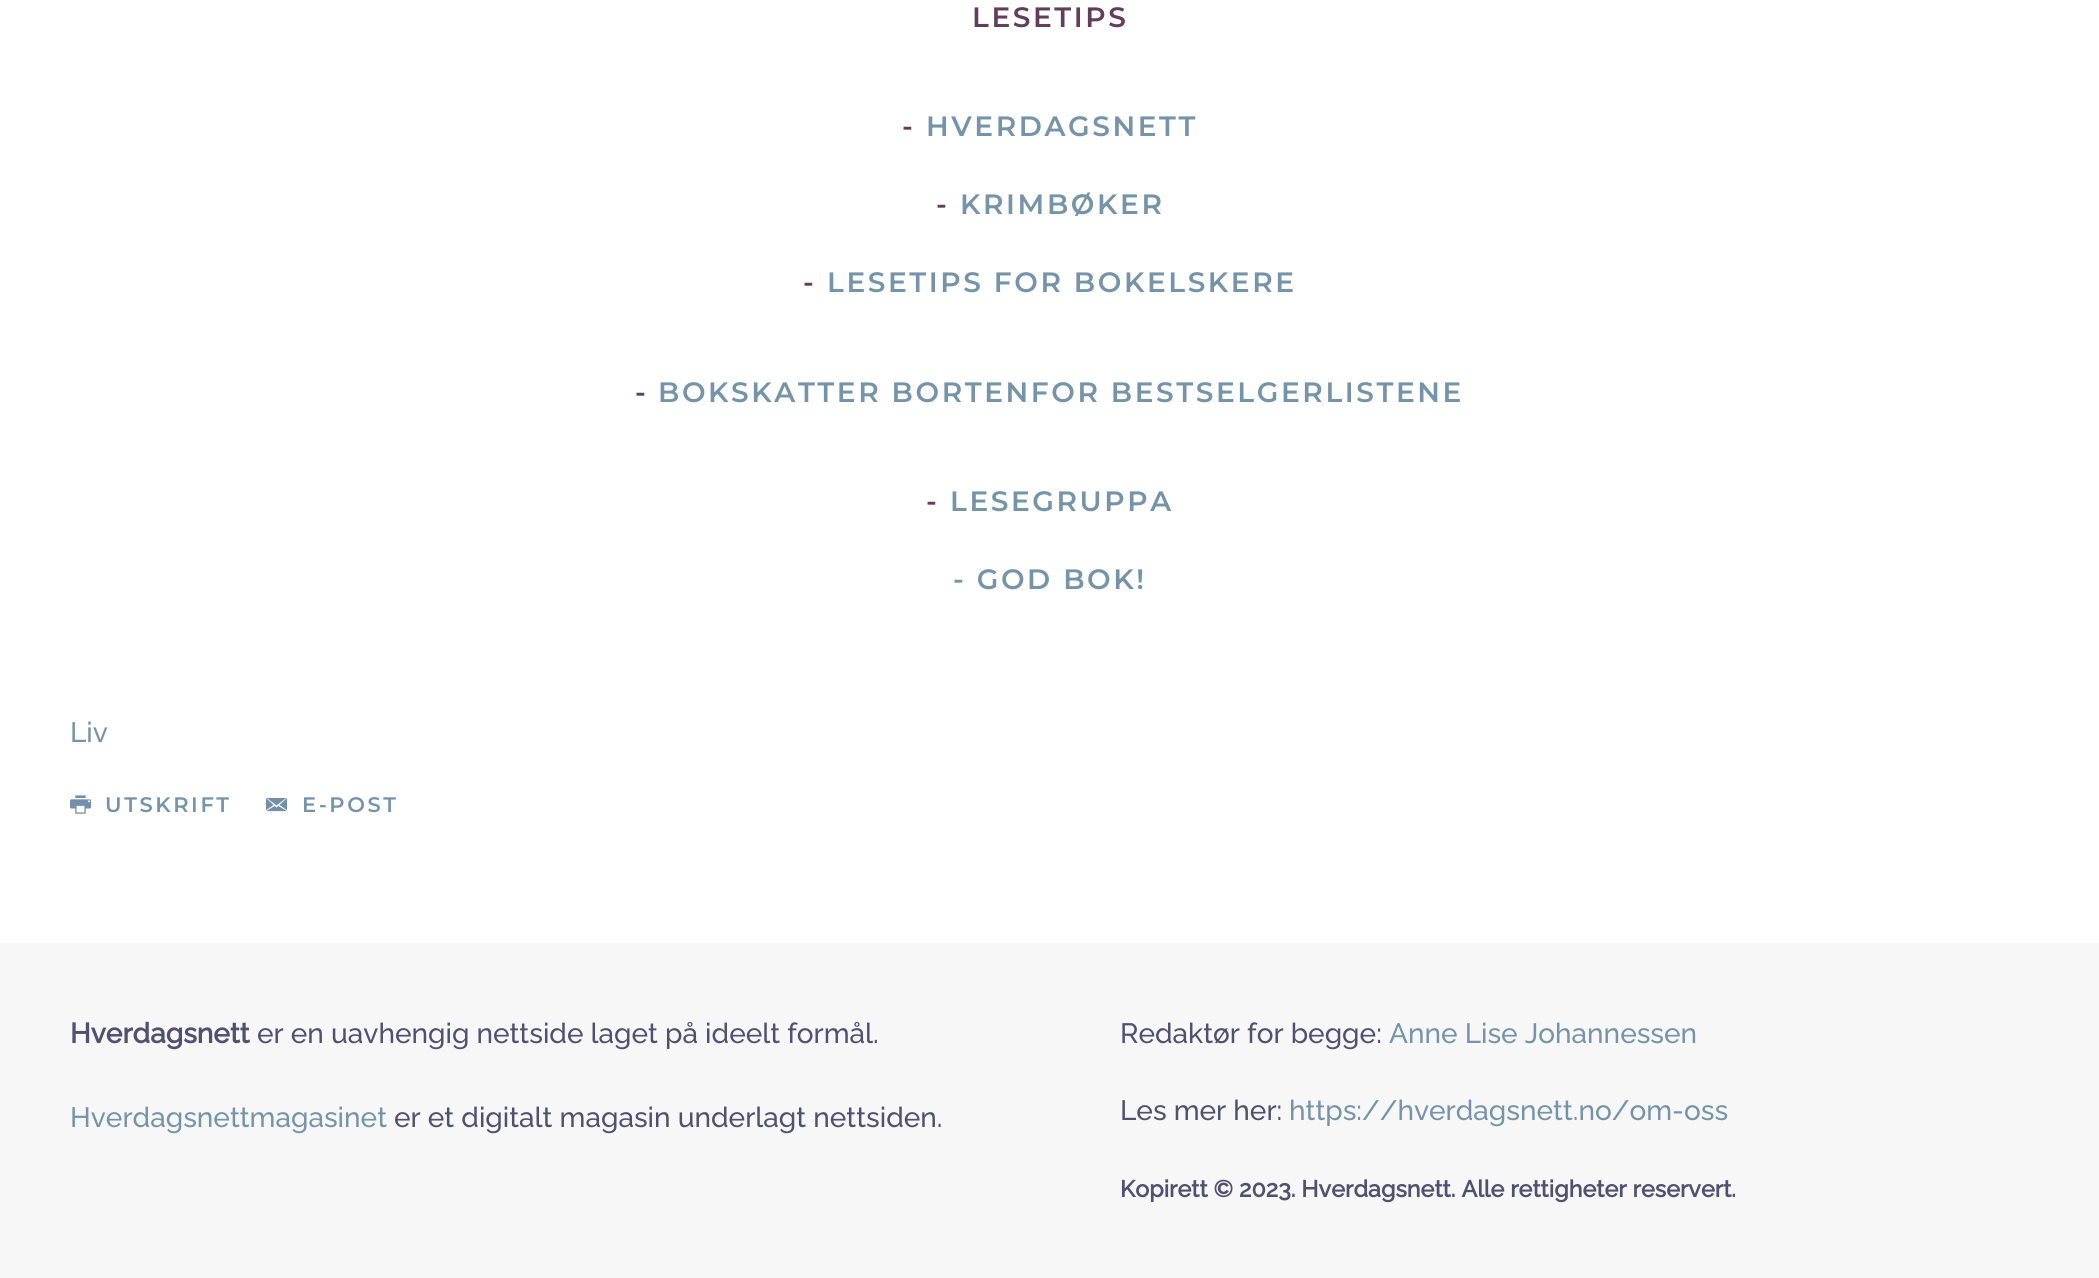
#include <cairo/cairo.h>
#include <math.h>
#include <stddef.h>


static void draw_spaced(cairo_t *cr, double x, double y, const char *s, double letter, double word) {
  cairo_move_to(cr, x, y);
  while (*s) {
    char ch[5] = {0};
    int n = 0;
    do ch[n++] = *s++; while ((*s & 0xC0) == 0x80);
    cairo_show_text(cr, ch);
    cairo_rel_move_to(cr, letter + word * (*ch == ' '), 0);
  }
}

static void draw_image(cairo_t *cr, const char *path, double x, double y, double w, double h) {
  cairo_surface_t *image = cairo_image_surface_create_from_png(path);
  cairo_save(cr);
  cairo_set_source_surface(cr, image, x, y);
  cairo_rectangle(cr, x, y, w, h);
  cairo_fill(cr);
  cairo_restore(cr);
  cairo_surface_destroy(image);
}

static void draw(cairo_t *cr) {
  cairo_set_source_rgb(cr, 1, 1, 1);
  cairo_paint(cr);
  draw_image(cr, "images/1.png", 70, 795, 21, 19);
  draw_image(cr, "images/2.png", 266, 798, 21, 14);
  cairo_set_source_rgb(cr, 247 / 255.0, 247 / 255.0, 247 / 255.0);
  cairo_rectangle(cr, 0, 943, 2099, 335);
  cairo_fill(cr);
  cairo_select_font_face(cr, "Montserrat Thin", CAIRO_FONT_SLANT_NORMAL, CAIRO_FONT_WEIGHT_NORMAL);
  cairo_set_font_size(cr, 28);
  cairo_set_source_rgb(cr, 98 / 255.0, 62 / 255.0, 91 / 255.0);
  draw_spaced(cr, 972, 27, "LESETIPS", 2.6, 0);
  draw_spaced(cr, 902, 136, "-", 2.6, 0);
  cairo_set_source_rgb(cr, 118 / 255.0, 148 / 255.0, 169 / 255.0);
  draw_spaced(cr, 926, 136, "HVERDAGSNETT", 2.6, 0);
  cairo_set_source_rgb(cr, 98 / 255.0, 62 / 255.0, 91 / 255.0);
  draw_spaced(cr, 936, 214, "-", 2.6, 0);
  cairo_set_source_rgb(cr, 118 / 255.0, 148 / 255.0, 169 / 255.0);
  draw_spaced(cr, 960, 214, "KRIMBØKER", 2.6, 0);
  cairo_set_source_rgb(cr, 98 / 255.0, 62 / 255.0, 91 / 255.0);
  draw_spaced(cr, 803, 292, "-", 2.6, 0);
  cairo_set_source_rgb(cr, 118 / 255.0, 148 / 255.0, 169 / 255.0);
  draw_spaced(cr, 827, 292, "LESETIPS FOR BOKELSKERE", 2.6, 0);
  cairo_set_source_rgb(cr, 98 / 255.0, 62 / 255.0, 91 / 255.0);
  draw_spaced(cr, 635, 402, "-", 2.6, 0);
  cairo_set_source_rgb(cr, 118 / 255.0, 148 / 255.0, 169 / 255.0);
  draw_spaced(cr, 658, 402, "BOKSKATTER BORTENFOR BESTSELGERLISTENE", 2.6, 0);
  cairo_set_source_rgb(cr, 98 / 255.0, 62 / 255.0, 91 / 255.0);
  draw_spaced(cr, 926, 511, "-", 2.6, 0);
  cairo_set_source_rgb(cr, 118 / 255.0, 148 / 255.0, 169 / 255.0);
  draw_spaced(cr, 950, 511, "LESEGRUPPA", 2.6, 0);
  draw_spaced(cr, 953, 589, "- GOD BOK!", 2.6, 0);
  cairo_select_font_face(cr, "Raleway Thin", CAIRO_FONT_SLANT_NORMAL, CAIRO_FONT_WEIGHT_NORMAL);
  cairo_move_to(cr, 70, 742);
  cairo_show_text(cr, "Liv");
  cairo_select_font_face(cr, "Montserrat Thin", CAIRO_FONT_SLANT_NORMAL, CAIRO_FONT_WEIGHT_NORMAL);
  cairo_set_font_size(cr, 21);
  draw_spaced(cr, 105, 812, "UTSKRIFT", 2.6, 0);
  draw_spaced(cr, 302, 812, "E-POST", 2.6, 0);
  cairo_select_font_face(cr, "Raleway", CAIRO_FONT_SLANT_NORMAL, CAIRO_FONT_WEIGHT_BOLD);
  cairo_set_font_size(cr, 28);
  cairo_set_source_rgb(cr, 81 / 255.0, 80 / 255.0, 112 / 255.0);
  cairo_move_to(cr, 70, 1043);
  cairo_show_text(cr, "Hverdagsnett");
  cairo_select_font_face(cr, "Raleway Thin", CAIRO_FONT_SLANT_NORMAL, CAIRO_FONT_WEIGHT_NORMAL);
  cairo_move_to(cr, 257, 1043);
  cairo_show_text(cr, "er en uavhengig nettside laget på ideelt formål.");
  cairo_set_source_rgb(cr, 118 / 255.0, 148 / 255.0, 169 / 255.0);
  cairo_move_to(cr, 70, 1127);
  cairo_show_text(cr, "Hverdagsnettmagasinet");
  cairo_set_source_rgb(cr, 81 / 255.0, 80 / 255.0, 112 / 255.0);
  cairo_move_to(cr, 394, 1127);
  cairo_show_text(cr, "er et digitalt magasin underlagt nettsiden.");
  cairo_move_to(cr, 1120, 1043);
  cairo_show_text(cr, "Redaktør for begge:");
  cairo_set_source_rgb(cr, 118 / 255.0, 148 / 255.0, 169 / 255.0);
  cairo_move_to(cr, 1389, 1043);
  cairo_show_text(cr, "Anne Lise Johannessen");
  cairo_set_source_rgb(cr, 81 / 255.0, 80 / 255.0, 112 / 255.0);
  cairo_move_to(cr, 1120, 1120);
  cairo_show_text(cr, "Les mer her:");
  cairo_set_source_rgb(cr, 118 / 255.0, 148 / 255.0, 169 / 255.0);
  cairo_move_to(cr, 1289, 1120);
  cairo_show_text(cr, "https://hverdagsnett.no/om-oss");
  cairo_select_font_face(cr, "Raleway", CAIRO_FONT_SLANT_NORMAL, CAIRO_FONT_WEIGHT_BOLD);
  cairo_set_font_size(cr, 23.3);
  cairo_set_source_rgb(cr, 81 / 255.0, 80 / 255.0, 112 / 255.0);
  cairo_move_to(cr, 1120, 1197);
  cairo_show_text(cr, "Kopirett © 2023. Hverdagsnett. Alle rettigheter reservert.");
}

int main(void) {
  cairo_surface_t *surface = cairo_image_surface_create(CAIRO_FORMAT_RGB24, 2099, 1278);
  cairo_t *cr = cairo_create(surface);
  cairo_font_options_t *options = cairo_font_options_create();
  cairo_font_options_set_hint_metrics(options, CAIRO_HINT_METRICS_OFF);
  cairo_font_options_set_hint_style(options, CAIRO_HINT_STYLE_NONE);
  cairo_set_font_options(cr, options);
  cairo_set_miter_limit(cr, 4);
  draw(cr);
  cairo_surface_write_to_png(surface, "out.png");
  cairo_font_options_destroy(options);
  cairo_destroy(cr);
  cairo_surface_destroy(surface);
  return 0;
}
